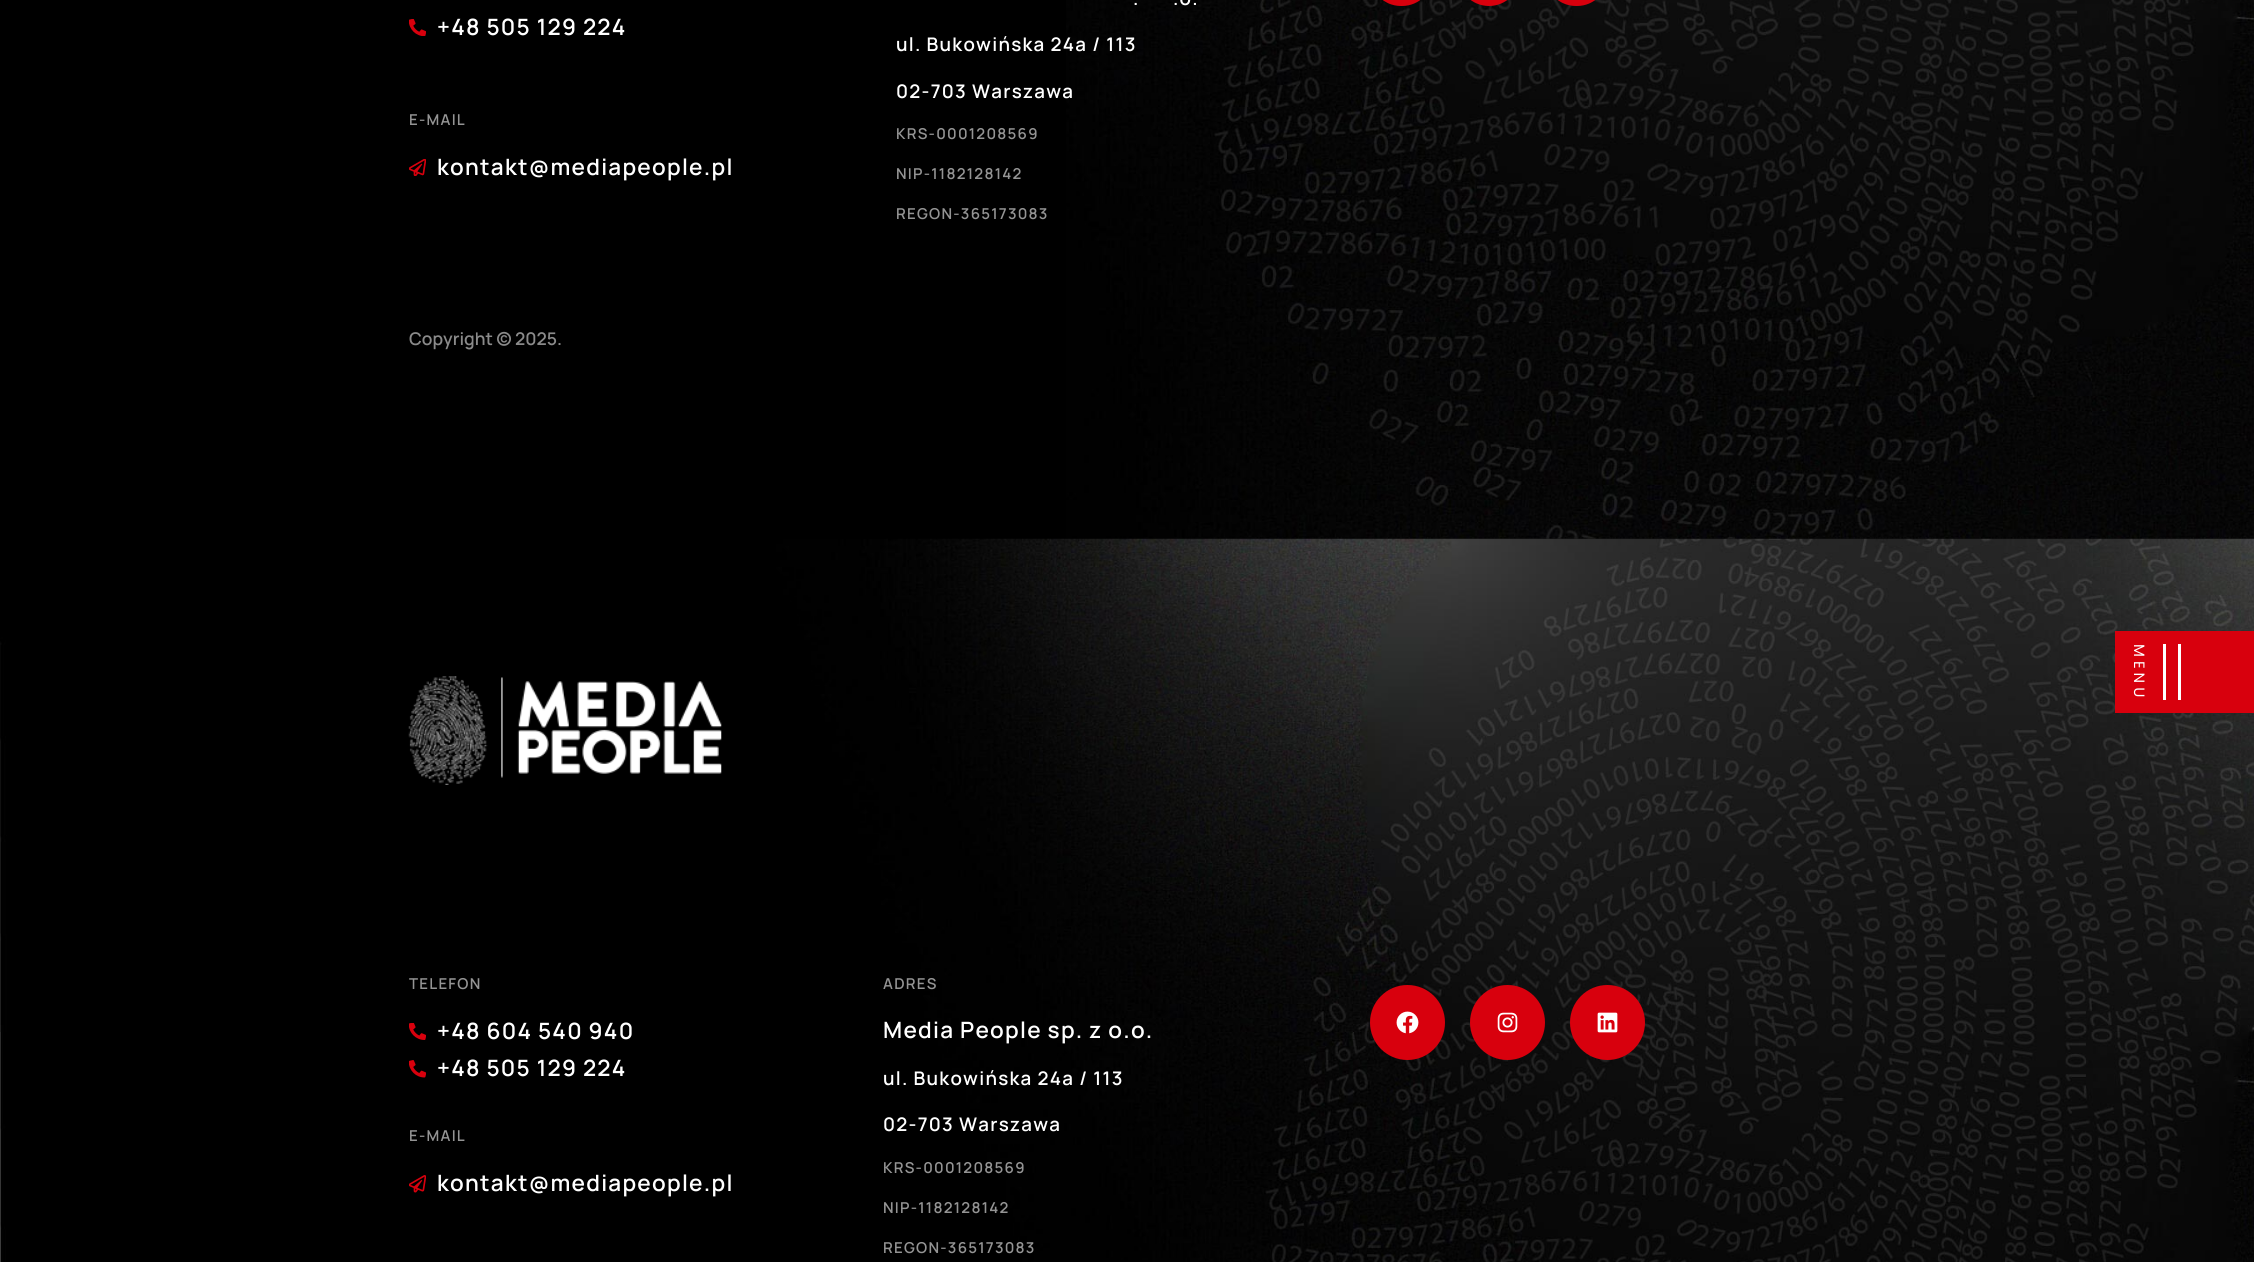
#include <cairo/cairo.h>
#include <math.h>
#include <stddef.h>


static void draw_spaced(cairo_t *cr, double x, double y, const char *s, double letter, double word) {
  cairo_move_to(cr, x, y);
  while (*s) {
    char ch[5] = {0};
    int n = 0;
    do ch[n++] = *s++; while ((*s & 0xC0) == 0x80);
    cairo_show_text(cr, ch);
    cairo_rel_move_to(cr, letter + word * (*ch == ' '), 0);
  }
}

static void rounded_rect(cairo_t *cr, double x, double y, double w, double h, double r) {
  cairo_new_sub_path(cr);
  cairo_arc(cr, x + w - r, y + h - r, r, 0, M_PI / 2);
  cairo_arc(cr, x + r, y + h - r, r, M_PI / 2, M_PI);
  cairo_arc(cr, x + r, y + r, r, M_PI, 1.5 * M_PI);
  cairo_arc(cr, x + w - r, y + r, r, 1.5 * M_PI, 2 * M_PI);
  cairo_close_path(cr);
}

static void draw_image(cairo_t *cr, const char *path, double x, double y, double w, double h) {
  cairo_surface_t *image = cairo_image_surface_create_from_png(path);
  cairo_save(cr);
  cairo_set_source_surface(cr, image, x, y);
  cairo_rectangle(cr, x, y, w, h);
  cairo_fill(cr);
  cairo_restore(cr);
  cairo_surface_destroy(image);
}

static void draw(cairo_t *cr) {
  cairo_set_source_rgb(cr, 0, 0, 0);
  cairo_paint(cr);
  draw_image(cr, "images/1.png", 1066, 0, 1188, 539);
  cairo_set_source_rgb(cr, 216 / 255.0, 0, 13 / 255.0);
  rounded_rect(cr, 1370, -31, 63, 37, 31);
  cairo_fill(cr);
  rounded_rect(cr, 1458, -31, 62, 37, 31);
  cairo_fill(cr);
  rounded_rect(cr, 1545, -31, 63, 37, 31);
  cairo_fill(cr);
  draw_image(cr, "images/2.png", 409, 19, 17, 17);
  draw_image(cr, "images/3.png", 409, 159, 17, 17);
  draw_image(cr, "images/4.png", 0, 538, 2254, 724);
  draw_image(cr, "images/5.png", 408, 676, 314, 109);
  draw_image(cr, "images/6.png", 409, 1023, 17, 17);
  draw_image(cr, "images/7.png", 409, 1060, 17, 18);
  draw_image(cr, "images/8.png", 409, 1175, 17, 18);
  cairo_arc(cr, 1407.5, 1022.5, 37.5, 0, 2 * M_PI);
  cairo_fill(cr);
  draw_image(cr, "images/9.png", 1396, 1011, 23, 23);
  cairo_arc(cr, 1507.5, 1022.5, 37.5, 0, 2 * M_PI);
  cairo_fill(cr);
  draw_image(cr, "images/10.png", 1497, 1012, 21, 21);
  cairo_arc(cr, 1607.5, 1022.5, 37.5, 0, 2 * M_PI);
  cairo_fill(cr);
  draw_image(cr, "images/11.png", 1597, 1012, 21, 21);
  cairo_rectangle(cr, 2115, 631, 139, 82);
  cairo_fill(cr);
  cairo_set_source_rgb(cr, 1, 1, 1);
  cairo_rectangle(cr, 2163, 644, 3, 56);
  cairo_fill(cr);
  cairo_rectangle(cr, 2178, 644, 3, 56);
  cairo_fill(cr);
  cairo_select_font_face(cr, "Manrope SemiBold", CAIRO_FONT_SLANT_NORMAL, CAIRO_FONT_WEIGHT_NORMAL);
  cairo_set_font_size(cr, 22.5);
  draw_spaced(cr, 437, 35, "+48 505 129 224", 1.25, 0);
  cairo_set_font_size(cr, 15);
  cairo_set_source_rgb(cr, 148 / 255.0, 148 / 255.0, 148 / 255.0);
  draw_spaced(cr, 409, 125, "E-MAIL", 1.25, 0);
  cairo_set_font_size(cr, 22.5);
  cairo_set_source_rgb(cr, 1, 1, 1);
  draw_spaced(cr, 437, 175, "kontakt@mediapeople.pl", 1.25, 0);
  cairo_set_font_size(cr, 18.75);
  draw_spaced(cr, 1133, 5, ".", 1.25, 0);
  draw_spaced(cr, 1173, 5, ".o.", 1.25, 0);
  draw_spaced(cr, 896, 51, "ul. Bukowińska 24a / 113", 1.25, 0);
  draw_spaced(cr, 896, 98, "02-703 Warszawa", 1.25, 0);
  cairo_set_font_size(cr, 15);
  cairo_set_source_rgb(cr, 148 / 255.0, 148 / 255.0, 148 / 255.0);
  draw_spaced(cr, 896, 139, "KRS-0001208569", 1.25, 0);
  draw_spaced(cr, 896, 179, "NIP-1182128142", 1.25, 0);
  draw_spaced(cr, 896, 219, "REGON-365173083", 1.25, 0);
  cairo_set_font_size(cr, 17.5);
  cairo_set_source_rgb(cr, 138 / 255.0, 138 / 255.0, 138 / 255.0);
  cairo_move_to(cr, 409, 345);
  cairo_show_text(cr, "Copyright © 2025.");
  cairo_set_font_size(cr, 15);
  cairo_set_source_rgb(cr, 148 / 255.0, 148 / 255.0, 148 / 255.0);
  draw_spaced(cr, 409, 989, "TELEFON", 1.25, 0);
  cairo_set_font_size(cr, 22.5);
  cairo_set_source_rgb(cr, 1, 1, 1);
  draw_spaced(cr, 437, 1039, "+48 604 540 940", 1.25, 0);
  draw_spaced(cr, 437, 1076, "+48 505 129 224", 1.25, 0);
  cairo_set_font_size(cr, 15);
  cairo_set_source_rgb(cr, 148 / 255.0, 148 / 255.0, 148 / 255.0);
  draw_spaced(cr, 409, 1141, "E-MAIL", 1.25, 0);
  cairo_set_font_size(cr, 22.5);
  cairo_set_source_rgb(cr, 1, 1, 1);
  draw_spaced(cr, 437, 1191, "kontakt@mediapeople.pl", 1.25, 0);
  cairo_set_font_size(cr, 15);
  cairo_set_source_rgb(cr, 148 / 255.0, 148 / 255.0, 148 / 255.0);
  draw_spaced(cr, 883, 989, "ADRES", 1.25, 0);
  cairo_set_font_size(cr, 22.5);
  cairo_set_source_rgb(cr, 1, 1, 1);
  draw_spaced(cr, 883, 1038, "Media People sp. z o.o.", 1.25, 0);
  cairo_set_font_size(cr, 18.75);
  draw_spaced(cr, 883, 1085, "ul. Bukowińska 24a / 113", 1.25, 0);
  draw_spaced(cr, 883, 1131, "02-703 Warszawa", 1.25, 0);
  cairo_set_font_size(cr, 15);
  cairo_set_source_rgb(cr, 148 / 255.0, 148 / 255.0, 148 / 255.0);
  draw_spaced(cr, 883, 1173, "KRS-0001208569", 1.25, 0);
  draw_spaced(cr, 883, 1213, "NIP-1182128142", 1.25, 0);
  draw_spaced(cr, 883, 1253, "REGON-365173083", 1.25, 0);
  cairo_select_font_face(cr, "Poppins", CAIRO_FONT_SLANT_NORMAL, CAIRO_FONT_WEIGHT_NORMAL);
  cairo_set_source_rgb(cr, 1, 1, 1);
  cairo_save(cr);
  cairo_translate(cr, 2134, 644);
  cairo_rotate(cr, 90 * M_PI / 180);
  draw_spaced(cr, 0, 0, "MENU", 4, 0);
  cairo_restore(cr);
}

int main(void) {
  cairo_surface_t *surface = cairo_image_surface_create(CAIRO_FORMAT_RGB24, 2254, 1262);
  cairo_t *cr = cairo_create(surface);
  cairo_font_options_t *options = cairo_font_options_create();
  cairo_font_options_set_hint_metrics(options, CAIRO_HINT_METRICS_OFF);
  cairo_font_options_set_hint_style(options, CAIRO_HINT_STYLE_NONE);
  cairo_set_font_options(cr, options);
  cairo_set_miter_limit(cr, 4);
  draw(cr);
  cairo_surface_write_to_png(surface, "out.png");
  cairo_font_options_destroy(options);
  cairo_destroy(cr);
  cairo_surface_destroy(surface);
  return 0;
}
